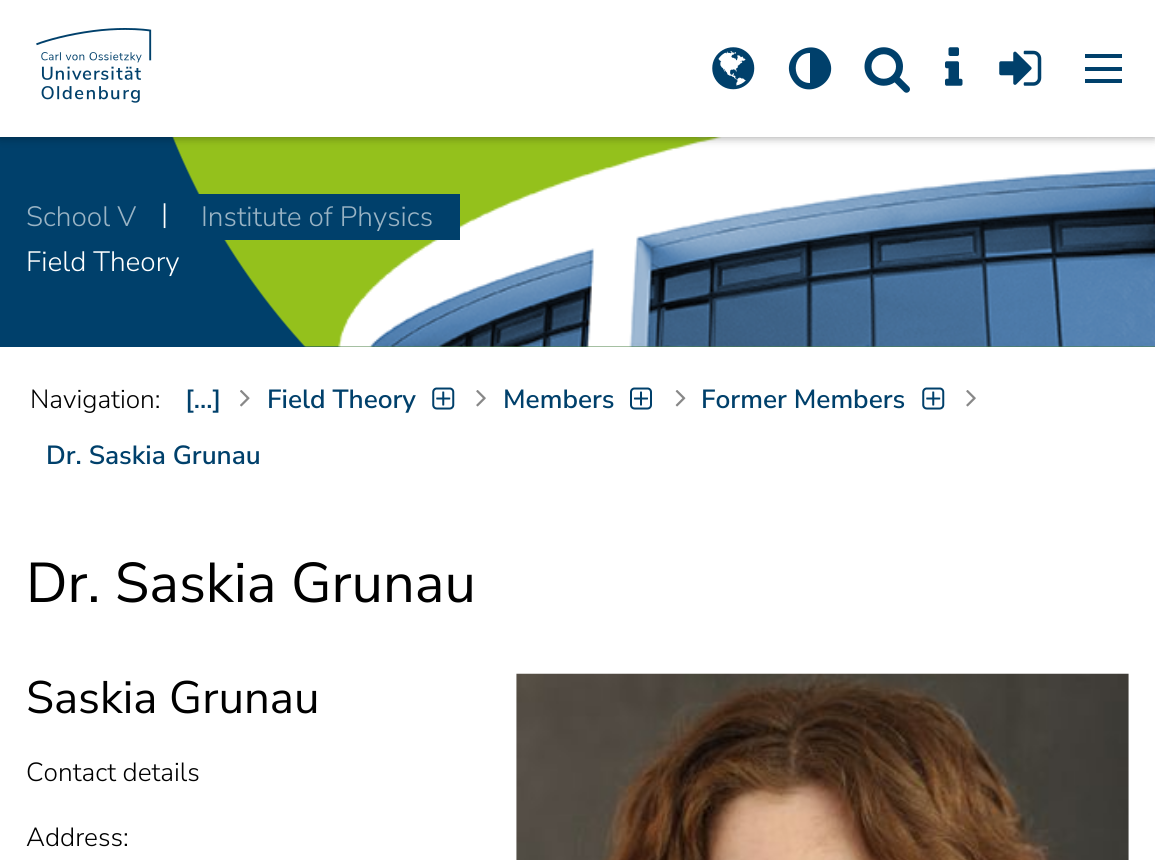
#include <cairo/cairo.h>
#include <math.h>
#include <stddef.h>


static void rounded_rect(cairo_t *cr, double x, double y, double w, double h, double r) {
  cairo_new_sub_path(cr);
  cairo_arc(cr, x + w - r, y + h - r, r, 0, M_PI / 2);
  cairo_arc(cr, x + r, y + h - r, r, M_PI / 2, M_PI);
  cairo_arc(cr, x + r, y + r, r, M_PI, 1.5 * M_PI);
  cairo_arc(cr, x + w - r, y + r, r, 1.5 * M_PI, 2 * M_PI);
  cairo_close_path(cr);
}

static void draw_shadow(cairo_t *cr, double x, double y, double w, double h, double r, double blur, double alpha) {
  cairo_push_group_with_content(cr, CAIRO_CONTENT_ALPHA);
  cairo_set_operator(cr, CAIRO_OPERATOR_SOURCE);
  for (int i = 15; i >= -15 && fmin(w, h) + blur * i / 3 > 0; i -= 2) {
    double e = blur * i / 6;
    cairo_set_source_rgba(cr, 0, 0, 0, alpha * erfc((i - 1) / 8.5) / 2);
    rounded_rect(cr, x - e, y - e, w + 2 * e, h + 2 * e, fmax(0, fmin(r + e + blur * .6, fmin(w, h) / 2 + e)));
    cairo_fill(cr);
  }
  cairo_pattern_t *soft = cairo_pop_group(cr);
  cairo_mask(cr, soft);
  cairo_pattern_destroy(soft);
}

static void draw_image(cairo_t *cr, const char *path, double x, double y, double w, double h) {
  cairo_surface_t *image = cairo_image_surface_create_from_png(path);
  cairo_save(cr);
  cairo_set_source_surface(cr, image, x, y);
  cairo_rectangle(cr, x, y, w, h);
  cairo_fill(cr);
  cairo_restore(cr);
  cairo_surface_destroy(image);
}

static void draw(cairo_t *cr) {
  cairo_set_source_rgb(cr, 1, 1, 1);
  cairo_paint(cr);
  cairo_set_source_rgb(cr, 0, 64 / 255.0, 107 / 255.0);
  cairo_rectangle(cr, 0, 137, 1155, 210);
  cairo_fill(cr);
  draw_image(cr, "images/6.png", 172, 137, 983, 210);
  cairo_set_source_rgb(cr, 0, 0, 0);
  draw_shadow(cr, 0, 0, 1155, 137, 0, 5, 0.4);
  cairo_set_source_rgb(cr, 1, 1, 1);
  cairo_rectangle(cr, 0, 0, 1155, 137);
  cairo_fill(cr);
  draw_image(cr, "images/1.png", 36, 28, 116, 75);
  draw_image(cr, "images/2.png", 712, 47, 43, 43);
  cairo_set_source_rgb(cr, 0, 64 / 255.0, 107 / 255.0);
  cairo_new_path(cr);
  cairo_move_to(cr, 810, 83);
  cairo_line_to(cr, 810, 53);
  cairo_curve_to(cr, 791, 53, 791, 83, 810, 83);
  cairo_close_path(cr);
  cairo_move_to(cr, 828, 58);
  cairo_curve_to(cr, 842, 81, 806, 103, 792, 79);
  cairo_curve_to(cr, 778, 55, 815, 34, 828, 58);
  cairo_close_path(cr);
  cairo_fill(cr);
  draw_image(cr, "images/3.png", 864, 47, 46, 46);
  draw_image(cr, "images/4.png", 945, 47, 18, 39);
  draw_image(cr, "images/5.png", 999, 50, 43, 36);
  cairo_rectangle(cr, 1085, 67, 37, 4);
  cairo_fill(cr);
  cairo_rectangle(cr, 1085, 54, 37, 4);
  cairo_fill(cr);
  cairo_rectangle(cr, 1085, 79, 37, 4);
  cairo_fill(cr);
  cairo_rectangle(cr, 198, 194, 262, 46);
  cairo_fill(cr);
  draw_image(cr, "images/7.png", 240, 390, 10, 17);
  draw_image(cr, "images/8.png", 432, 387, 23, 23);
  draw_image(cr, "images/9.png", 476, 390, 10, 17);
  draw_image(cr, "images/10.png", 630, 387, 22, 23);
  draw_image(cr, "images/11.png", 675, 390, 11, 17);
  draw_image(cr, "images/8.png", 922, 387, 23, 23);
  draw_image(cr, "images/9.png", 966, 390, 10, 17);
  draw_image(cr, "images/12.png", 516, 673, 613, 187);
  cairo_select_font_face(cr, "Nunito Sans Light", CAIRO_FONT_SLANT_NORMAL, CAIRO_FONT_WEIGHT_NORMAL);
  cairo_set_font_size(cr, 28);
  cairo_set_source_rgb(cr, 153 / 255.0, 179 / 255.0, 196 / 255.0);
  cairo_move_to(cr, 26, 226);
  cairo_show_text(cr, "School V");
  cairo_set_source_rgb(cr, 1, 1, 1);
  cairo_move_to(cr, 161, 223);
  cairo_show_text(cr, "|");
  cairo_set_source_rgb(cr, 153 / 255.0, 179 / 255.0, 196 / 255.0);
  cairo_move_to(cr, 201, 226);
  cairo_show_text(cr, "Institute of Physics");
  cairo_set_source_rgb(cr, 1, 1, 1);
  cairo_move_to(cr, 26, 271);
  cairo_show_text(cr, "Field Theory");
  cairo_set_font_size(cr, 26.25);
  cairo_set_source_rgb(cr, 0, 0, 0);
  cairo_move_to(cr, 30, 408);
  cairo_show_text(cr, "Navigation:");
  cairo_select_font_face(cr, "Nunito Sans SemiBold", CAIRO_FONT_SLANT_NORMAL, CAIRO_FONT_WEIGHT_NORMAL);
  cairo_set_source_rgb(cr, 0, 64 / 255.0, 107 / 255.0);
  cairo_move_to(cr, 185, 408);
  cairo_show_text(cr, "[…]");
  cairo_move_to(cr, 267, 408);
  cairo_show_text(cr, "Field Theory");
  cairo_move_to(cr, 503, 408);
  cairo_show_text(cr, "Members");
  cairo_move_to(cr, 701, 408);
  cairo_show_text(cr, "Former Members");
  cairo_move_to(cr, 46, 464);
  cairo_show_text(cr, "Dr. Saskia Grunau");
  cairo_select_font_face(cr, "Nunito Sans", CAIRO_FONT_SLANT_NORMAL, CAIRO_FONT_WEIGHT_NORMAL);
  cairo_set_font_size(cr, 56);
  cairo_set_source_rgb(cr, 0, 0, 0);
  cairo_move_to(cr, 26, 602);
  cairo_show_text(cr, "Dr. Saskia Grunau");
  cairo_set_font_size(cr, 45.5);
  cairo_move_to(cr, 26, 713);
  cairo_show_text(cr, "Saskia Grunau");
  cairo_select_font_face(cr, "Nunito Sans Light", CAIRO_FONT_SLANT_NORMAL, CAIRO_FONT_WEIGHT_NORMAL);
  cairo_set_font_size(cr, 26.25);
  cairo_move_to(cr, 26, 781);
  cairo_show_text(cr, "Contact details");
  cairo_move_to(cr, 26, 846);
  cairo_show_text(cr, "Address:");
}

int main(void) {
  cairo_surface_t *surface = cairo_image_surface_create(CAIRO_FORMAT_RGB24, 1155, 860);
  cairo_t *cr = cairo_create(surface);
  cairo_font_options_t *options = cairo_font_options_create();
  cairo_font_options_set_hint_metrics(options, CAIRO_HINT_METRICS_OFF);
  cairo_font_options_set_hint_style(options, CAIRO_HINT_STYLE_NONE);
  cairo_set_font_options(cr, options);
  cairo_set_miter_limit(cr, 4);
  draw(cr);
  cairo_surface_write_to_png(surface, "out.png");
  cairo_font_options_destroy(options);
  cairo_destroy(cr);
  cairo_surface_destroy(surface);
  return 0;
}
